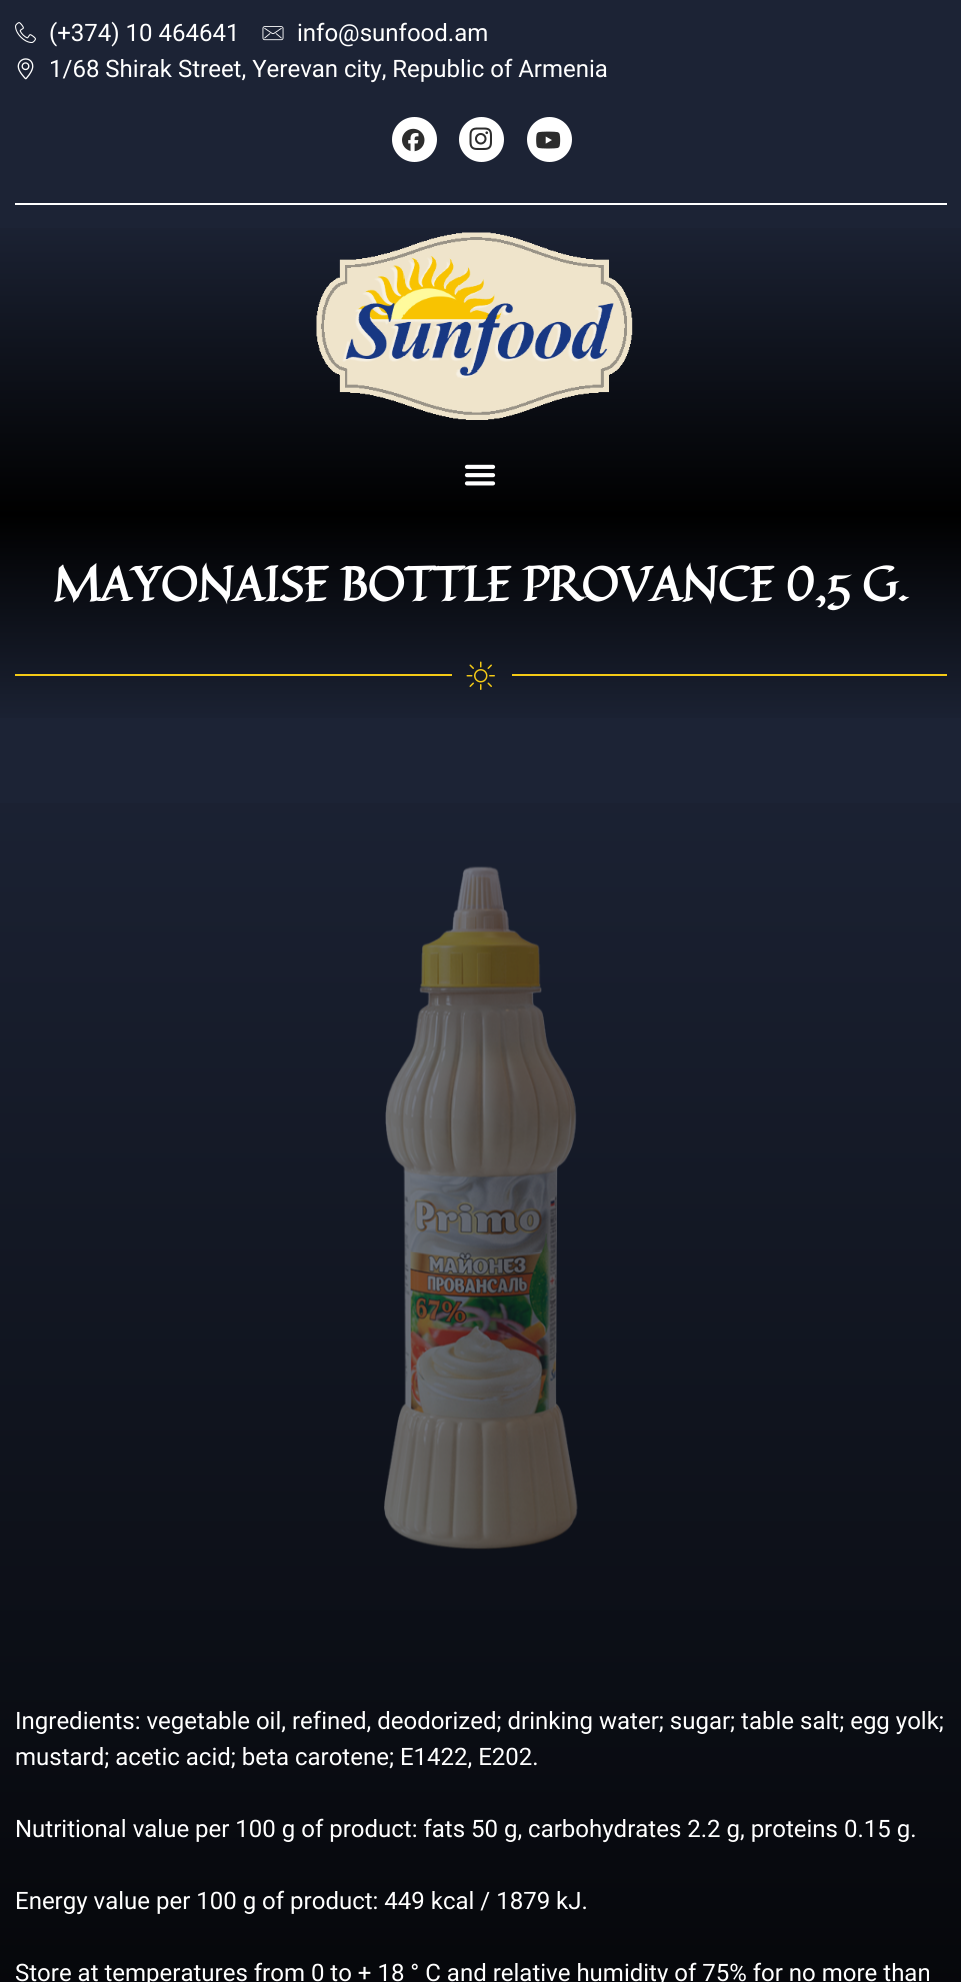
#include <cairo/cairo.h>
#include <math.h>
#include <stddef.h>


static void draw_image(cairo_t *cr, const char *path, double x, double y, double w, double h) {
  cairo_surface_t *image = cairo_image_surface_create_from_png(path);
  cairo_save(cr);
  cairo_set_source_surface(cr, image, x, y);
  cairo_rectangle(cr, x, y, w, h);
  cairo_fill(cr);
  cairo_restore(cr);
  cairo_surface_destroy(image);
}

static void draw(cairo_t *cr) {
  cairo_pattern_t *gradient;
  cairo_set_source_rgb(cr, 28 / 255.0, 35 / 255.0, 53 / 255.0);
  cairo_paint(cr);
  draw_image(cr, "images/1.png", 15, 22, 21, 21);
  draw_image(cr, "images/2.png", 262, 26, 22, 15);
  draw_image(cr, "images/3.png", 17, 58, 17, 22);
  cairo_set_source_rgb(cr, 1, 1, 1);
  cairo_arc(cr, 414.5, 139.5, 22.5, 0, 2 * M_PI);
  cairo_fill(cr);
  draw_image(cr, "images/4.png", 402, 128, 23, 24);
  cairo_arc(cr, 481.5, 139.5, 22.5, 0, 2 * M_PI);
  cairo_fill(cr);
  draw_image(cr, "images/5.png", 469, 127, 23, 23);
  cairo_arc(cr, 549.5, 139.5, 22.5, 0, 2 * M_PI);
  cairo_fill(cr);
  draw_image(cr, "images/6.png", 536, 131, 25, 18);
  cairo_rectangle(cr, 15, 203, 932, 2);
  cairo_fill(cr);
  gradient = cairo_pattern_create_linear(481, 214, 481, 515);
  cairo_pattern_add_color_stop_rgba(gradient, 0, 28 / 255.0, 35 / 255.0, 53 / 255.0, 1);
  cairo_pattern_add_color_stop_rgba(gradient, 1, 0, 0, 0, 1);
  cairo_set_source(cr, gradient);
  cairo_pattern_destroy(gradient);
  cairo_rectangle(cr, 0, 228, 961, 287);
  cairo_fill(cr);
  draw_image(cr, "images/7.png", 316, 232, 317, 188);
  draw_image(cr, "images/8.png", 464, 464, 32, 22);
  gradient = cairo_pattern_create_linear(481, 514, 481, 728);
  cairo_pattern_add_color_stop_rgba(gradient, 0, 0, 0, 0, 1);
  cairo_pattern_add_color_stop_rgba(gradient, 1, 28 / 255.0, 35 / 255.0, 53 / 255.0, 1);
  cairo_set_source(cr, gradient);
  cairo_pattern_destroy(gradient);
  cairo_rectangle(cr, 0, 515, 961, 203);
  cairo_fill(cr);
  cairo_set_source_rgb(cr, 244 / 255.0, 202 / 255.0, 22 / 255.0);
  cairo_rectangle(cr, 15, 674, 437, 2);
  cairo_fill(cr);
  draw_image(cr, "images/9.png", 466, 661, 29, 29);
  cairo_rectangle(cr, 512, 674, 435, 2);
  cairo_fill(cr);
  gradient = cairo_pattern_create_linear(481, 728, 481, 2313);
  cairo_pattern_add_color_stop_rgba(gradient, 0, 28 / 255.0, 35 / 255.0, 53 / 255.0, 1);
  cairo_pattern_add_color_stop_rgba(gradient, 1, 0, 0, 0, 1);
  cairo_set_source(cr, gradient);
  cairo_pattern_destroy(gradient);
  cairo_rectangle(cr, 0, 803, 961, 1179);
  cairo_fill(cr);
  draw_image(cr, "images/10.png", 384, 866, 194, 684);
  cairo_select_font_face(cr, "Roboto", CAIRO_FONT_SLANT_NORMAL, CAIRO_FONT_WEIGHT_NORMAL);
  cairo_set_font_size(cr, 24);
  cairo_set_source_rgb(cr, 1, 1, 1);
  cairo_move_to(cr, 49, 41);
  cairo_show_text(cr, "(+374) 10 464641");
  cairo_move_to(cr, 297, 41);
  cairo_show_text(cr, "info@sunfood.am");
  cairo_move_to(cr, 49, 77);
  cairo_show_text(cr, "1/68 Shirak Street, Yerevan city, Republic of Armenia");
  cairo_select_font_face(cr, "Quintessential", CAIRO_FONT_SLANT_NORMAL, CAIRO_FONT_WEIGHT_BOLD);
  cairo_set_font_size(cr, 48);
  cairo_move_to(cr, 53, 601);
  cairo_show_text(cr, "MAYONAISE BOTTLE PROVANCE 0,5 G.");
  cairo_select_font_face(cr, "Roboto", CAIRO_FONT_SLANT_NORMAL, CAIRO_FONT_WEIGHT_NORMAL);
  cairo_set_font_size(cr, 24);
  cairo_move_to(cr, 15, 1729);
  cairo_show_text(cr, "Ingredients: vegetable oil, refined, deodorized; drinking water; sugar; table salt; egg yolk;");
  cairo_move_to(cr, 15, 1765);
  cairo_show_text(cr, "mustard; acetic acid; beta carotene; E1422, E202.");
  cairo_move_to(cr, 15, 1837);
  cairo_show_text(cr, "Nutritional value per 100 g of product: fats 50 g, carbohydrates 2.2 g, proteins 0.15 g.");
  cairo_move_to(cr, 15, 1909);
  cairo_show_text(cr, "Energy value per 100 g of product: 449 kcal / 1879 kJ.");
  cairo_move_to(cr, 15, 1981);
  cairo_show_text(cr, "Store at temperatures from 0 to + 18 ° C and relative humidity of 75% for no more than");
}

int main(void) {
  cairo_surface_t *surface = cairo_image_surface_create(CAIRO_FORMAT_RGB24, 961, 1982);
  cairo_t *cr = cairo_create(surface);
  cairo_font_options_t *options = cairo_font_options_create();
  cairo_font_options_set_hint_metrics(options, CAIRO_HINT_METRICS_OFF);
  cairo_font_options_set_hint_style(options, CAIRO_HINT_STYLE_NONE);
  cairo_set_font_options(cr, options);
  cairo_set_miter_limit(cr, 4);
  draw(cr);
  cairo_surface_write_to_png(surface, "out.png");
  cairo_font_options_destroy(options);
  cairo_destroy(cr);
  cairo_surface_destroy(surface);
  return 0;
}
